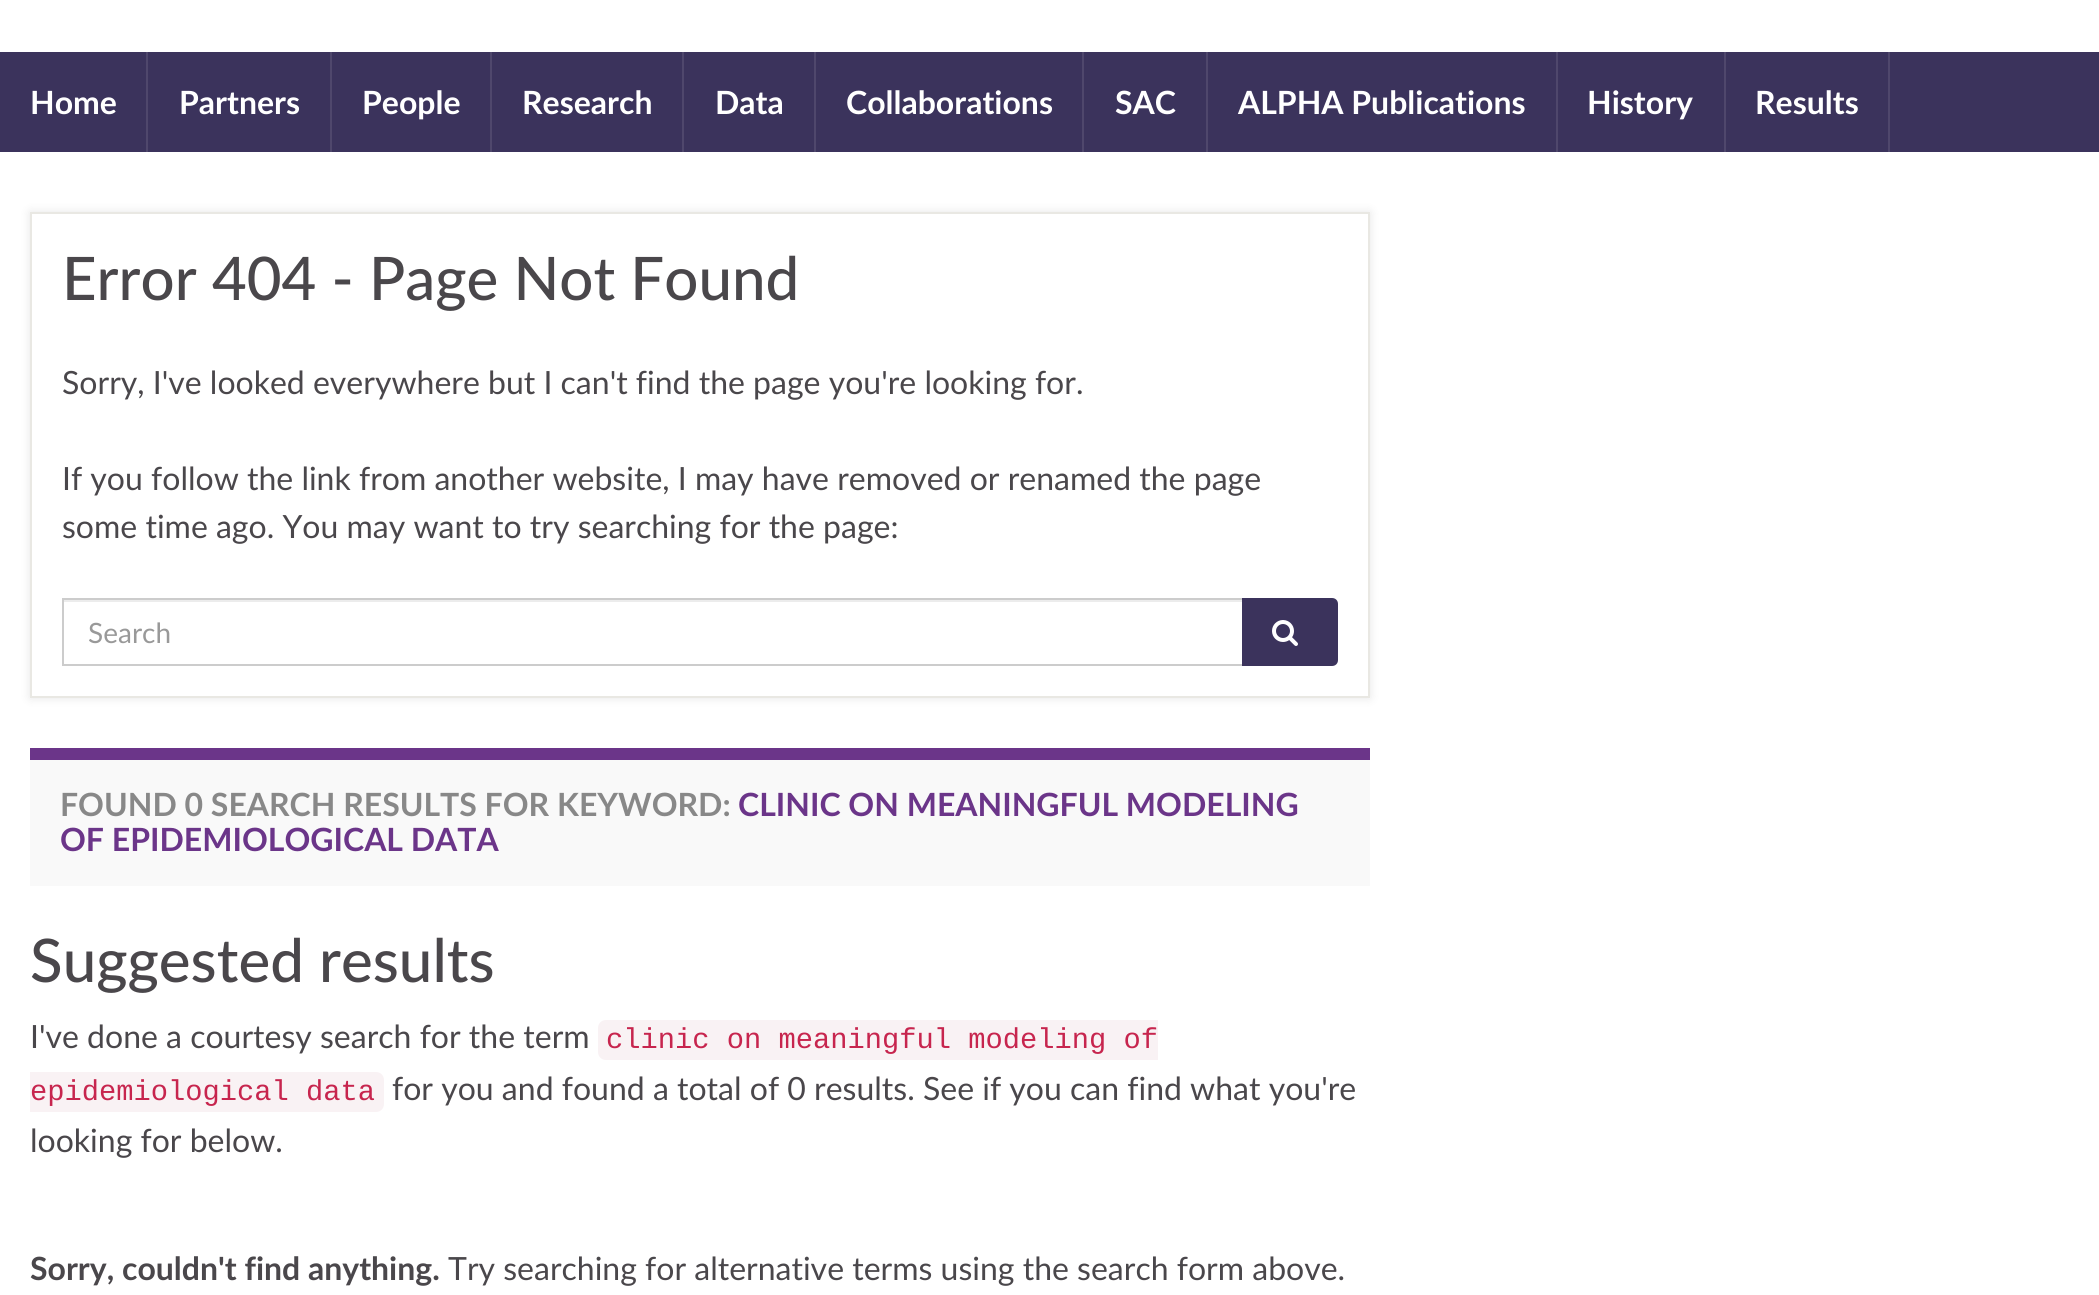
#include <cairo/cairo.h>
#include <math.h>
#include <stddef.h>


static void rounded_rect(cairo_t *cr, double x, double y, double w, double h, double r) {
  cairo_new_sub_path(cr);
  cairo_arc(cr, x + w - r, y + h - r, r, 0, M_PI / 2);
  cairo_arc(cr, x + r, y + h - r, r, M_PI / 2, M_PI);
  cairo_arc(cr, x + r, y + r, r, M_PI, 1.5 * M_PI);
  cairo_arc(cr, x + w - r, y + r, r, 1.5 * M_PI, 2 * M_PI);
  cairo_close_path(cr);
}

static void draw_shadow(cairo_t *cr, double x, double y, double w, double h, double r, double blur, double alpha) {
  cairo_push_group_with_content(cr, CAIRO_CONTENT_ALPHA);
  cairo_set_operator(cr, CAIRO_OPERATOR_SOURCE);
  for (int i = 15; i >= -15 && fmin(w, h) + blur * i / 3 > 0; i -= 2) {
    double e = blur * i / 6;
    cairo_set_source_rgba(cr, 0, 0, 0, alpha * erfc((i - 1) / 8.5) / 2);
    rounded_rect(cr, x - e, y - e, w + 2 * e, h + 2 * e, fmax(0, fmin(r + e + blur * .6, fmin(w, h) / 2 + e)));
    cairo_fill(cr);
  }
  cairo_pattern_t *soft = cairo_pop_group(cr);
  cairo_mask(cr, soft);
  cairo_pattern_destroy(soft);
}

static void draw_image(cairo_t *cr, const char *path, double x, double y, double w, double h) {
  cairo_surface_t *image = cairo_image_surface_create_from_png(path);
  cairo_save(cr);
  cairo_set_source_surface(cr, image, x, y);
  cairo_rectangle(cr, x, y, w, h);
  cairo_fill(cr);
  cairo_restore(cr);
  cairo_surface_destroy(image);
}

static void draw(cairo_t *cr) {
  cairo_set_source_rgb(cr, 1, 1, 1);
  cairo_paint(cr);
  cairo_set_source_rgb(cr, 59 / 255.0, 51 / 255.0, 92 / 255.0);
  cairo_rectangle(cr, 0, 52, 2099, 100);
  cairo_fill(cr);
  cairo_set_source_rgb(cr, 79 / 255.0, 71 / 255.0, 108 / 255.0);
  cairo_rectangle(cr, 146, 52, 2, 100);
  cairo_fill(cr);
  cairo_rectangle(cr, 330, 52, 2, 100);
  cairo_fill(cr);
  cairo_rectangle(cr, 490, 52, 2, 100);
  cairo_fill(cr);
  cairo_rectangle(cr, 682, 52, 2, 100);
  cairo_fill(cr);
  cairo_rectangle(cr, 814, 52, 2, 100);
  cairo_fill(cr);
  cairo_rectangle(cr, 1082, 52, 2, 100);
  cairo_fill(cr);
  cairo_rectangle(cr, 1206, 52, 2, 100);
  cairo_fill(cr);
  cairo_rectangle(cr, 1556, 52, 2, 100);
  cairo_fill(cr);
  cairo_rectangle(cr, 1724, 52, 2, 100);
  cairo_fill(cr);
  cairo_rectangle(cr, 1888, 52, 2, 100);
  cairo_fill(cr);
  cairo_save(cr);
  cairo_set_fill_rule(cr, CAIRO_FILL_RULE_EVEN_ODD);
  cairo_new_path(cr);
  cairo_move_to(cr, 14, 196);
  cairo_line_to(cr, 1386, 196);
  cairo_line_to(cr, 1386, 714);
  cairo_line_to(cr, 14, 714);
  cairo_close_path(cr);
  cairo_move_to(cr, 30, 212);
  cairo_line_to(cr, 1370, 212);
  cairo_line_to(cr, 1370, 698);
  cairo_line_to(cr, 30, 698);
  cairo_close_path(cr);
  cairo_clip(cr);
  cairo_set_source_rgb(cr, 0, 0, 0);
  draw_shadow(cr, 30, 212, 1340, 486, 0, 5, 0.1);
  cairo_restore(cr);
  cairo_rectangle(cr, 31, 213, 1338, 484);
  cairo_set_source_rgb(cr, 233 / 255.0, 232 / 255.0, 227 / 255.0);
  cairo_stroke(cr);
  cairo_set_source_rgb(cr, 236 / 255.0, 236 / 255.0, 236 / 255.0);
  cairo_rectangle(cr, 64, 600, 1178, 2);
  cairo_fill(cr);
  cairo_rectangle(cr, 63, 599, 1180, 66);
  cairo_set_source_rgb(cr, 204 / 255.0, 204 / 255.0, 204 / 255.0);
  cairo_stroke(cr);
  cairo_set_source_rgb(cr, 59 / 255.0, 51 / 255.0, 92 / 255.0);
  cairo_new_path(cr);
  cairo_move_to(cr, 1242, 598);
  cairo_line_to(cr, 1332, 598);
  cairo_curve_to(cr, 1335.5, 598, 1338, 600.5, 1338, 604);
  cairo_line_to(cr, 1338, 660);
  cairo_curve_to(cr, 1338, 663.5, 1335.5, 666, 1332, 666);
  cairo_line_to(cr, 1242, 666);
  cairo_close_path(cr);
  cairo_fill(cr);
  draw_image(cr, "images/1.png", 1272, 620, 26, 26);
  cairo_set_source_rgb(cr, 249 / 255.0, 249 / 255.0, 249 / 255.0);
  cairo_rectangle(cr, 30, 760, 1340, 126);
  cairo_fill(cr);
  cairo_set_source_rgb(cr, 107 / 255.0, 53 / 255.0, 137 / 255.0);
  cairo_rectangle(cr, 30, 748, 1340, 12);
  cairo_fill(cr);
  cairo_set_source_rgb(cr, 249 / 255.0, 242 / 255.0, 244 / 255.0);
  cairo_new_path(cr);
  cairo_move_to(cr, 606, 1020);
  cairo_line_to(cr, 1158, 1020);
  cairo_line_to(cr, 1158, 1060);
  cairo_line_to(cr, 606, 1060);
  cairo_curve_to(cr, 601.5, 1060, 598, 1056.5, 598, 1052);
  cairo_line_to(cr, 598, 1028);
  cairo_curve_to(cr, 598, 1023.5, 601.5, 1020, 606, 1020);
  cairo_close_path(cr);
  cairo_fill(cr);
  cairo_new_path(cr);
  cairo_move_to(cr, 30, 1072);
  cairo_line_to(cr, 376, 1072);
  cairo_curve_to(cr, 380.5, 1072, 384, 1075.5, 384, 1080);
  cairo_line_to(cr, 384, 1104);
  cairo_curve_to(cr, 384, 1108.5, 380.5, 1112, 376, 1112);
  cairo_line_to(cr, 30, 1112);
  cairo_close_path(cr);
  cairo_fill(cr);
  cairo_select_font_face(cr, "Lato", CAIRO_FONT_SLANT_NORMAL, CAIRO_FONT_WEIGHT_BOLD);
  cairo_set_font_size(cr, 32);
  cairo_set_source_rgb(cr, 1, 1, 1);
  cairo_move_to(cr, 30, 114);
  cairo_show_text(cr, "Home");
  cairo_move_to(cr, 179, 114);
  cairo_show_text(cr, "Partners");
  cairo_move_to(cr, 362, 114);
  cairo_show_text(cr, "People");
  cairo_move_to(cr, 522, 114);
  cairo_show_text(cr, "Research");
  cairo_move_to(cr, 715, 114);
  cairo_show_text(cr, "Data");
  cairo_move_to(cr, 846, 114);
  cairo_show_text(cr, "Collaborations");
  cairo_move_to(cr, 1115, 114);
  cairo_show_text(cr, "SAC");
  cairo_move_to(cr, 1238, 114);
  cairo_show_text(cr, "ALPHA Publications");
  cairo_move_to(cr, 1587, 114);
  cairo_show_text(cr, "History");
  cairo_move_to(cr, 1755, 114);
  cairo_show_text(cr, "Results");
  cairo_select_font_face(cr, "Lato Medium", CAIRO_FONT_SLANT_NORMAL, CAIRO_FONT_WEIGHT_NORMAL);
  cairo_set_font_size(cr, 60);
  cairo_set_source_rgb(cr, 74 / 255.0, 71 / 255.0, 75 / 255.0);
  cairo_move_to(cr, 62, 300);
  cairo_show_text(cr, "Error 404 - Page Not Found");
  cairo_select_font_face(cr, "Lato", CAIRO_FONT_SLANT_NORMAL, CAIRO_FONT_WEIGHT_NORMAL);
  cairo_set_font_size(cr, 32);
  cairo_move_to(cr, 62, 394);
  cairo_show_text(cr, "Sorry, I've looked everywhere but I can't find the page you're looking for.");
  cairo_move_to(cr, 62, 490);
  cairo_show_text(cr, "If you follow the link from another website, I may have removed or renamed the page");
  cairo_move_to(cr, 62, 538);
  cairo_show_text(cr, "some time ago. You may want to try searching for the page:");
  cairo_set_font_size(cr, 28);
  cairo_set_source_rgb(cr, 153 / 255.0, 153 / 255.0, 153 / 255.0);
  cairo_move_to(cr, 88, 643);
  cairo_show_text(cr, "Search");
  cairo_select_font_face(cr, "Lato", CAIRO_FONT_SLANT_NORMAL, CAIRO_FONT_WEIGHT_BOLD);
  cairo_set_font_size(cr, 32);
  cairo_set_source_rgb(cr, 136 / 255.0, 136 / 255.0, 136 / 255.0);
  cairo_move_to(cr, 60, 816);
  cairo_show_text(cr, "FOUND 0 SEARCH RESULTS FOR KEYWORD:");
  cairo_set_source_rgb(cr, 107 / 255.0, 53 / 255.0, 137 / 255.0);
  cairo_move_to(cr, 738, 816);
  cairo_show_text(cr, "CLINIC ON MEANINGFUL MODELING");
  cairo_move_to(cr, 60, 851);
  cairo_show_text(cr, "OF EPIDEMIOLOGICAL DATA");
  cairo_select_font_face(cr, "Lato Medium", CAIRO_FONT_SLANT_NORMAL, CAIRO_FONT_WEIGHT_NORMAL);
  cairo_set_font_size(cr, 60);
  cairo_set_source_rgb(cr, 74 / 255.0, 71 / 255.0, 75 / 255.0);
  cairo_move_to(cr, 30, 982);
  cairo_show_text(cr, "Suggested results");
  cairo_select_font_face(cr, "Lato", CAIRO_FONT_SLANT_NORMAL, CAIRO_FONT_WEIGHT_NORMAL);
  cairo_set_font_size(cr, 32);
  cairo_move_to(cr, 30, 1048);
  cairo_show_text(cr, "I've done a courtesy search for the term");
  cairo_select_font_face(cr, "Liberation Mono", CAIRO_FONT_SLANT_NORMAL, CAIRO_FONT_WEIGHT_NORMAL);
  cairo_set_font_size(cr, 28.75);
  cairo_set_source_rgb(cr, 199 / 255.0, 37 / 255.0, 78 / 255.0);
  cairo_move_to(cr, 606, 1048);
  cairo_show_text(cr, "clinic on meaningful modeling of");
  cairo_move_to(cr, 30, 1100);
  cairo_show_text(cr, "epidemiological data");
  cairo_select_font_face(cr, "Lato", CAIRO_FONT_SLANT_NORMAL, CAIRO_FONT_WEIGHT_NORMAL);
  cairo_set_font_size(cr, 32);
  cairo_set_source_rgb(cr, 74 / 255.0, 71 / 255.0, 75 / 255.0);
  cairo_move_to(cr, 392, 1100);
  cairo_show_text(cr, "for you and found a total of 0 results. See if you can find what you're");
  cairo_move_to(cr, 30, 1152);
  cairo_show_text(cr, "looking for below.");
  cairo_select_font_face(cr, "Lato", CAIRO_FONT_SLANT_NORMAL, CAIRO_FONT_WEIGHT_BOLD);
  cairo_move_to(cr, 30, 1280);
  cairo_show_text(cr, "Sorry, couldn't find anything.");
  cairo_select_font_face(cr, "Lato", CAIRO_FONT_SLANT_NORMAL, CAIRO_FONT_WEIGHT_NORMAL);
  cairo_move_to(cr, 448, 1280);
  cairo_show_text(cr, "Try searching for alternative terms using the search form above.");
}

int main(void) {
  cairo_surface_t *surface = cairo_image_surface_create(CAIRO_FORMAT_RGB24, 2099, 1295);
  cairo_t *cr = cairo_create(surface);
  cairo_font_options_t *options = cairo_font_options_create();
  cairo_font_options_set_hint_metrics(options, CAIRO_HINT_METRICS_OFF);
  cairo_font_options_set_hint_style(options, CAIRO_HINT_STYLE_NONE);
  cairo_set_font_options(cr, options);
  cairo_set_miter_limit(cr, 4);
  draw(cr);
  cairo_surface_write_to_png(surface, "out.png");
  cairo_font_options_destroy(options);
  cairo_destroy(cr);
  cairo_surface_destroy(surface);
  return 0;
}
